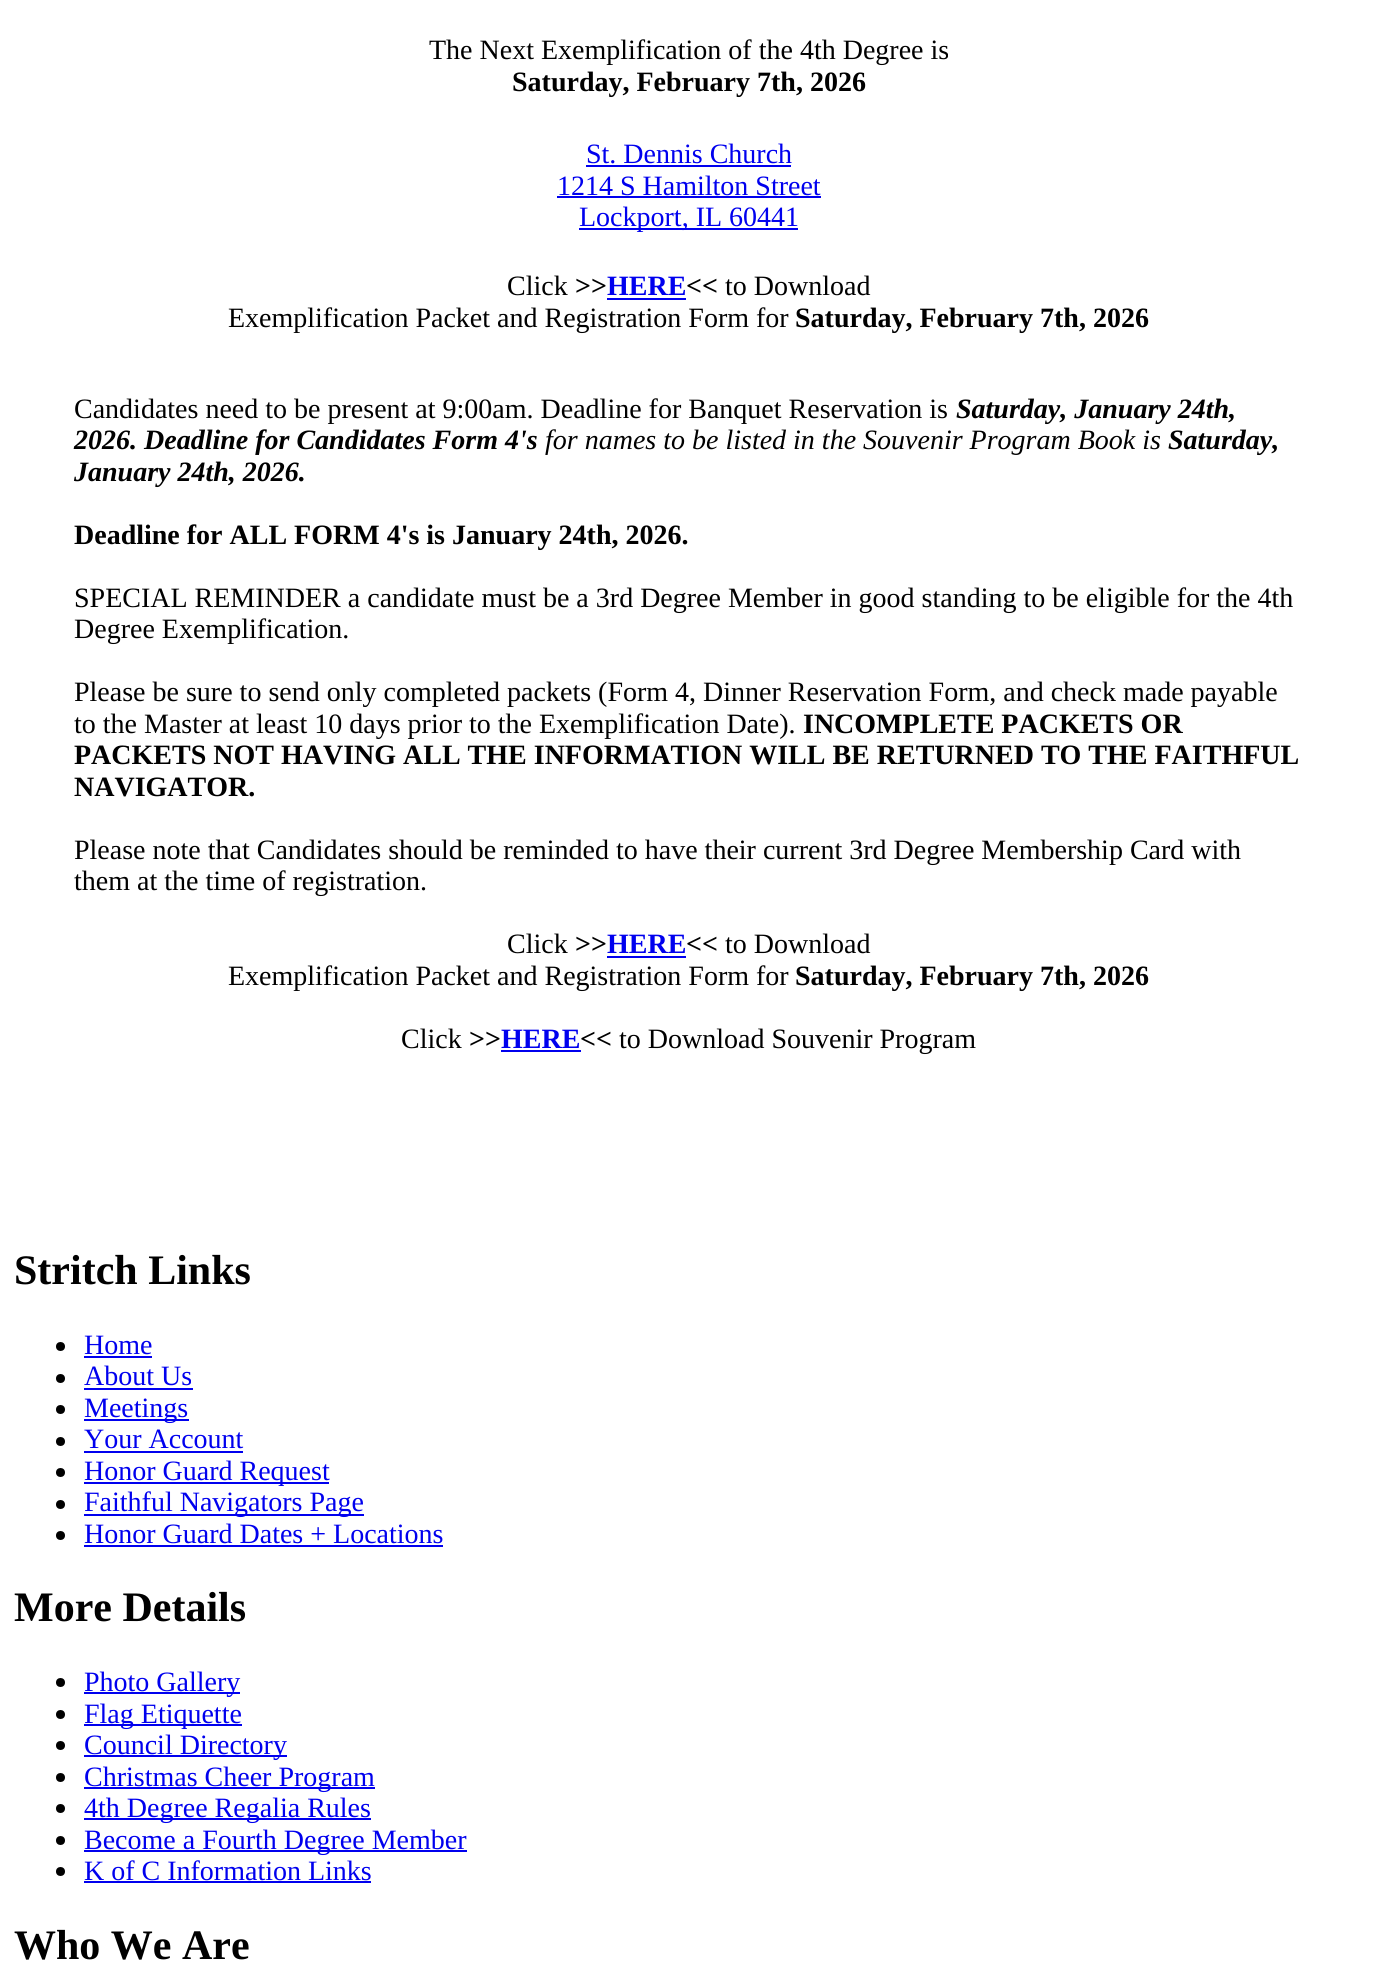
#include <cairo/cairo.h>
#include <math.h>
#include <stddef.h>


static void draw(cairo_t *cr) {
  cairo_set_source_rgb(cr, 1, 1, 1);
  cairo_paint(cr);
  cairo_set_source_rgb(cr, 0, 0, 238 / 255.0);
  cairo_rectangle(cr, 586, 165, 205, 2);
  cairo_fill(cr);
  cairo_rectangle(cr, 557, 196, 264, 2);
  cairo_fill(cr);
  cairo_rectangle(cr, 579, 228, 219, 2);
  cairo_fill(cr);
  cairo_rectangle(cr, 607, 298, 79, 2);
  cairo_fill(cr);
  cairo_rectangle(cr, 607, 956, 79, 2);
  cairo_fill(cr);
  cairo_rectangle(cr, 501, 1050, 80, 2);
  cairo_fill(cr);
  cairo_set_source_rgb(cr, 0, 0, 0);
  cairo_arc(cr, 60.5, 1346.5, 4.5, 0, 2 * M_PI);
  cairo_fill(cr);
  cairo_set_source_rgb(cr, 0, 0, 238 / 255.0);
  cairo_rectangle(cr, 84, 1356, 68, 2);
  cairo_fill(cr);
  cairo_set_source_rgb(cr, 0, 0, 0);
  cairo_arc(cr, 60.5, 1378.5, 4.5, 0, 2 * M_PI);
  cairo_fill(cr);
  cairo_set_source_rgb(cr, 0, 0, 238 / 255.0);
  cairo_rectangle(cr, 84, 1388, 109, 2);
  cairo_fill(cr);
  cairo_set_source_rgb(cr, 0, 0, 0);
  cairo_arc(cr, 60.5, 1409.5, 4.5, 0, 2 * M_PI);
  cairo_fill(cr);
  cairo_set_source_rgb(cr, 0, 0, 238 / 255.0);
  cairo_rectangle(cr, 84, 1419, 105, 2);
  cairo_fill(cr);
  cairo_set_source_rgb(cr, 0, 0, 0);
  cairo_arc(cr, 60.5, 1441.5, 4.5, 0, 2 * M_PI);
  cairo_fill(cr);
  cairo_set_source_rgb(cr, 0, 0, 238 / 255.0);
  cairo_rectangle(cr, 84, 1451, 159, 2);
  cairo_fill(cr);
  cairo_set_source_rgb(cr, 0, 0, 0);
  cairo_arc(cr, 60.5, 1472.5, 4.5, 0, 2 * M_PI);
  cairo_fill(cr);
  cairo_set_source_rgb(cr, 0, 0, 238 / 255.0);
  cairo_rectangle(cr, 84, 1482, 245, 2);
  cairo_fill(cr);
  cairo_set_source_rgb(cr, 0, 0, 0);
  cairo_arc(cr, 60.5, 1504.5, 4.5, 0, 2 * M_PI);
  cairo_fill(cr);
  cairo_set_source_rgb(cr, 0, 0, 238 / 255.0);
  cairo_rectangle(cr, 84, 1514, 280, 2);
  cairo_fill(cr);
  cairo_set_source_rgb(cr, 0, 0, 0);
  cairo_arc(cr, 60.5, 1535.5, 4.5, 0, 2 * M_PI);
  cairo_fill(cr);
  cairo_set_source_rgb(cr, 0, 0, 238 / 255.0);
  cairo_rectangle(cr, 84, 1545, 359, 2);
  cairo_fill(cr);
  cairo_set_source_rgb(cr, 0, 0, 0);
  cairo_arc(cr, 60.5, 1682.5, 4.5, 0, 2 * M_PI);
  cairo_fill(cr);
  cairo_set_source_rgb(cr, 0, 0, 238 / 255.0);
  cairo_rectangle(cr, 84, 1692, 156, 2);
  cairo_fill(cr);
  cairo_set_source_rgb(cr, 0, 0, 0);
  cairo_arc(cr, 60.5, 1714.5, 4.5, 0, 2 * M_PI);
  cairo_fill(cr);
  cairo_set_source_rgb(cr, 0, 0, 238 / 255.0);
  cairo_rectangle(cr, 84, 1724, 158, 2);
  cairo_fill(cr);
  cairo_set_source_rgb(cr, 0, 0, 0);
  cairo_arc(cr, 60.5, 1745.5, 4.5, 0, 2 * M_PI);
  cairo_fill(cr);
  cairo_set_source_rgb(cr, 0, 0, 238 / 255.0);
  cairo_rectangle(cr, 84, 1755, 203, 2);
  cairo_fill(cr);
  cairo_set_source_rgb(cr, 0, 0, 0);
  cairo_arc(cr, 60.5, 1777.5, 4.5, 0, 2 * M_PI);
  cairo_fill(cr);
  cairo_set_source_rgb(cr, 0, 0, 238 / 255.0);
  cairo_rectangle(cr, 84, 1787, 291, 2);
  cairo_fill(cr);
  cairo_set_source_rgb(cr, 0, 0, 0);
  cairo_arc(cr, 60.5, 1808.5, 4.5, 0, 2 * M_PI);
  cairo_fill(cr);
  cairo_set_source_rgb(cr, 0, 0, 238 / 255.0);
  cairo_rectangle(cr, 84, 1818, 287, 2);
  cairo_fill(cr);
  cairo_set_source_rgb(cr, 0, 0, 0);
  cairo_arc(cr, 60.5, 1840.5, 4.5, 0, 2 * M_PI);
  cairo_fill(cr);
  cairo_set_source_rgb(cr, 0, 0, 238 / 255.0);
  cairo_rectangle(cr, 84, 1850, 383, 2);
  cairo_fill(cr);
  cairo_set_source_rgb(cr, 0, 0, 0);
  cairo_arc(cr, 60.5, 1871.5, 4.5, 0, 2 * M_PI);
  cairo_fill(cr);
  cairo_set_source_rgb(cr, 0, 0, 238 / 255.0);
  cairo_rectangle(cr, 84, 1881, 287, 2);
  cairo_fill(cr);
  cairo_select_font_face(cr, "Liberation Serif", CAIRO_FONT_SLANT_NORMAL, CAIRO_FONT_WEIGHT_NORMAL);
  cairo_set_font_size(cr, 28);
  cairo_set_source_rgb(cr, 0, 0, 0);
  cairo_move_to(cr, 429, 59);
  cairo_show_text(cr, "The Next Exemplification of the 4th Degree is");
  cairo_select_font_face(cr, "Liberation Serif", CAIRO_FONT_SLANT_NORMAL, CAIRO_FONT_WEIGHT_BOLD);
  cairo_move_to(cr, 512, 91);
  cairo_show_text(cr, "Saturday, February 7th, 2026");
  cairo_select_font_face(cr, "Liberation Serif", CAIRO_FONT_SLANT_NORMAL, CAIRO_FONT_WEIGHT_NORMAL);
  cairo_set_source_rgb(cr, 0, 0, 238 / 255.0);
  cairo_move_to(cr, 586, 163);
  cairo_show_text(cr, "St. Dennis Church");
  cairo_move_to(cr, 557, 195);
  cairo_show_text(cr, "1214 S Hamilton Street");
  cairo_move_to(cr, 579, 226);
  cairo_show_text(cr, "Lockport, IL 60441");
  cairo_set_source_rgb(cr, 0, 0, 0);
  cairo_move_to(cr, 507, 295);
  cairo_show_text(cr, "Click");
  cairo_select_font_face(cr, "Liberation Serif", CAIRO_FONT_SLANT_NORMAL, CAIRO_FONT_WEIGHT_BOLD);
  cairo_move_to(cr, 575, 295);
  cairo_show_text(cr, ">>");
  cairo_set_source_rgb(cr, 0, 0, 238 / 255.0);
  cairo_move_to(cr, 607, 295);
  cairo_show_text(cr, "HERE");
  cairo_set_source_rgb(cr, 0, 0, 0);
  cairo_move_to(cr, 686, 295);
  cairo_show_text(cr, "<<");
  cairo_select_font_face(cr, "Liberation Serif", CAIRO_FONT_SLANT_NORMAL, CAIRO_FONT_WEIGHT_NORMAL);
  cairo_move_to(cr, 725, 295);
  cairo_show_text(cr, "to Download");
  cairo_move_to(cr, 228, 327);
  cairo_show_text(cr, "Exemplification Packet and Registration Form for");
  cairo_select_font_face(cr, "Liberation Serif", CAIRO_FONT_SLANT_NORMAL, CAIRO_FONT_WEIGHT_BOLD);
  cairo_move_to(cr, 795, 327);
  cairo_show_text(cr, "Saturday, February 7th, 2026");
  cairo_select_font_face(cr, "Liberation Serif", CAIRO_FONT_SLANT_NORMAL, CAIRO_FONT_WEIGHT_NORMAL);
  cairo_move_to(cr, 74, 418);
  cairo_show_text(cr, "Candidates need to be present at 9:00am. Deadline for Banquet Reservation is");
  cairo_select_font_face(cr, "Liberation Serif", CAIRO_FONT_SLANT_ITALIC, CAIRO_FONT_WEIGHT_BOLD);
  cairo_move_to(cr, 956, 418);
  cairo_show_text(cr, "Saturday, January 24th,");
  cairo_move_to(cr, 74, 449);
  cairo_show_text(cr, "2026. Deadline for Candidates Form 4's");
  cairo_select_font_face(cr, "Liberation Serif", CAIRO_FONT_SLANT_ITALIC, CAIRO_FONT_WEIGHT_NORMAL);
  cairo_move_to(cr, 545, 449);
  cairo_show_text(cr, "for names to be listed in the Souvenir Program Book is");
  cairo_select_font_face(cr, "Liberation Serif", CAIRO_FONT_SLANT_ITALIC, CAIRO_FONT_WEIGHT_BOLD);
  cairo_move_to(cr, 1168, 449);
  cairo_show_text(cr, "Saturday,");
  cairo_move_to(cr, 74, 481);
  cairo_show_text(cr, "January 24th, 2026.");
  cairo_select_font_face(cr, "Liberation Serif", CAIRO_FONT_SLANT_NORMAL, CAIRO_FONT_WEIGHT_BOLD);
  cairo_move_to(cr, 74, 544);
  cairo_show_text(cr, "Deadline for ALL FORM 4's is January 24th, 2026.");
  cairo_select_font_face(cr, "Liberation Serif", CAIRO_FONT_SLANT_NORMAL, CAIRO_FONT_WEIGHT_NORMAL);
  cairo_move_to(cr, 74, 607);
  cairo_show_text(cr, "SPECIAL REMINDER a candidate must be a 3rd Degree Member in good standing to be eligible for the 4th");
  cairo_move_to(cr, 74, 638);
  cairo_show_text(cr, "Degree Exemplification.");
  cairo_move_to(cr, 74, 701);
  cairo_show_text(cr, "Please be sure to send only completed packets (Form 4, Dinner Reservation Form, and check made payable");
  cairo_move_to(cr, 74, 733);
  cairo_show_text(cr, "to the Master at least 10 days prior to the Exemplification Date).");
  cairo_select_font_face(cr, "Liberation Serif", CAIRO_FONT_SLANT_NORMAL, CAIRO_FONT_WEIGHT_BOLD);
  cairo_move_to(cr, 803, 733);
  cairo_show_text(cr, "INCOMPLETE PACKETS OR");
  cairo_move_to(cr, 74, 764);
  cairo_show_text(cr, "PACKETS NOT HAVING ALL THE INFORMATION WILL BE RETURNED TO THE FAITHFUL");
  cairo_move_to(cr, 74, 796);
  cairo_show_text(cr, "NAVIGATOR.");
  cairo_select_font_face(cr, "Liberation Serif", CAIRO_FONT_SLANT_NORMAL, CAIRO_FONT_WEIGHT_NORMAL);
  cairo_move_to(cr, 74, 859);
  cairo_show_text(cr, "Please note that Candidates should be reminded to have their current 3rd Degree Membership Card with");
  cairo_move_to(cr, 74, 890);
  cairo_show_text(cr, "them at the time of registration.");
  cairo_move_to(cr, 507, 953);
  cairo_show_text(cr, "Click");
  cairo_select_font_face(cr, "Liberation Serif", CAIRO_FONT_SLANT_NORMAL, CAIRO_FONT_WEIGHT_BOLD);
  cairo_move_to(cr, 575, 953);
  cairo_show_text(cr, ">>");
  cairo_set_source_rgb(cr, 0, 0, 238 / 255.0);
  cairo_move_to(cr, 607, 953);
  cairo_show_text(cr, "HERE");
  cairo_set_source_rgb(cr, 0, 0, 0);
  cairo_move_to(cr, 686, 953);
  cairo_show_text(cr, "<<");
  cairo_select_font_face(cr, "Liberation Serif", CAIRO_FONT_SLANT_NORMAL, CAIRO_FONT_WEIGHT_NORMAL);
  cairo_move_to(cr, 725, 953);
  cairo_show_text(cr, "to Download");
  cairo_move_to(cr, 228, 985);
  cairo_show_text(cr, "Exemplification Packet and Registration Form for");
  cairo_select_font_face(cr, "Liberation Serif", CAIRO_FONT_SLANT_NORMAL, CAIRO_FONT_WEIGHT_BOLD);
  cairo_move_to(cr, 795, 985);
  cairo_show_text(cr, "Saturday, February 7th, 2026");
  cairo_select_font_face(cr, "Liberation Serif", CAIRO_FONT_SLANT_NORMAL, CAIRO_FONT_WEIGHT_NORMAL);
  cairo_move_to(cr, 401, 1048);
  cairo_show_text(cr, "Click");
  cairo_select_font_face(cr, "Liberation Serif", CAIRO_FONT_SLANT_NORMAL, CAIRO_FONT_WEIGHT_BOLD);
  cairo_move_to(cr, 469, 1048);
  cairo_show_text(cr, ">>");
  cairo_set_source_rgb(cr, 0, 0, 238 / 255.0);
  cairo_move_to(cr, 501, 1048);
  cairo_show_text(cr, "HERE");
  cairo_set_source_rgb(cr, 0, 0, 0);
  cairo_move_to(cr, 580, 1048);
  cairo_show_text(cr, "<<");
  cairo_select_font_face(cr, "Liberation Serif", CAIRO_FONT_SLANT_NORMAL, CAIRO_FONT_WEIGHT_NORMAL);
  cairo_move_to(cr, 619, 1048);
  cairo_show_text(cr, "to Download Souvenir Program");
  cairo_select_font_face(cr, "Liberation Serif", CAIRO_FONT_SLANT_NORMAL, CAIRO_FONT_WEIGHT_BOLD);
  cairo_set_font_size(cr, 42);
  cairo_move_to(cr, 14, 1284);
  cairo_show_text(cr, "Stritch Links");
  cairo_select_font_face(cr, "Liberation Serif", CAIRO_FONT_SLANT_NORMAL, CAIRO_FONT_WEIGHT_NORMAL);
  cairo_set_font_size(cr, 28);
  cairo_set_source_rgb(cr, 0, 0, 238 / 255.0);
  cairo_move_to(cr, 84, 1354);
  cairo_show_text(cr, "Home");
  cairo_move_to(cr, 84, 1385);
  cairo_show_text(cr, "About Us");
  cairo_move_to(cr, 84, 1417);
  cairo_show_text(cr, "Meetings");
  cairo_move_to(cr, 84, 1448);
  cairo_show_text(cr, "Your Account");
  cairo_move_to(cr, 84, 1480);
  cairo_show_text(cr, "Honor Guard Request");
  cairo_move_to(cr, 84, 1511);
  cairo_show_text(cr, "Faithful Navigators Page");
  cairo_move_to(cr, 84, 1543);
  cairo_show_text(cr, "Honor Guard Dates + Locations");
  cairo_select_font_face(cr, "Liberation Serif", CAIRO_FONT_SLANT_NORMAL, CAIRO_FONT_WEIGHT_BOLD);
  cairo_set_font_size(cr, 42);
  cairo_set_source_rgb(cr, 0, 0, 0);
  cairo_move_to(cr, 14, 1621);
  cairo_show_text(cr, "More Details");
  cairo_select_font_face(cr, "Liberation Serif", CAIRO_FONT_SLANT_NORMAL, CAIRO_FONT_WEIGHT_NORMAL);
  cairo_set_font_size(cr, 28);
  cairo_set_source_rgb(cr, 0, 0, 238 / 255.0);
  cairo_move_to(cr, 84, 1691);
  cairo_show_text(cr, "Photo Gallery");
  cairo_move_to(cr, 84, 1723);
  cairo_show_text(cr, "Flag Etiquette");
  cairo_move_to(cr, 84, 1754);
  cairo_show_text(cr, "Council Directory");
  cairo_move_to(cr, 84, 1786);
  cairo_show_text(cr, "Christmas Cheer Program");
  cairo_move_to(cr, 84, 1817);
  cairo_show_text(cr, "4th Degree Regalia Rules");
  cairo_move_to(cr, 84, 1849);
  cairo_show_text(cr, "Become a Fourth Degree Member");
  cairo_move_to(cr, 84, 1880);
  cairo_show_text(cr, "K of C Information Links");
  cairo_select_font_face(cr, "Liberation Serif", CAIRO_FONT_SLANT_NORMAL, CAIRO_FONT_WEIGHT_BOLD);
  cairo_set_font_size(cr, 42);
  cairo_set_source_rgb(cr, 0, 0, 0);
  cairo_move_to(cr, 14, 1959);
  cairo_show_text(cr, "Who We Are");
}

int main(void) {
  cairo_surface_t *surface = cairo_image_surface_create(CAIRO_FORMAT_RGB24, 1376, 1978);
  cairo_t *cr = cairo_create(surface);
  cairo_font_options_t *options = cairo_font_options_create();
  cairo_font_options_set_hint_metrics(options, CAIRO_HINT_METRICS_OFF);
  cairo_font_options_set_hint_style(options, CAIRO_HINT_STYLE_NONE);
  cairo_set_font_options(cr, options);
  cairo_set_miter_limit(cr, 4);
  draw(cr);
  cairo_surface_write_to_png(surface, "out.png");
  cairo_font_options_destroy(options);
  cairo_destroy(cr);
  cairo_surface_destroy(surface);
  return 0;
}
